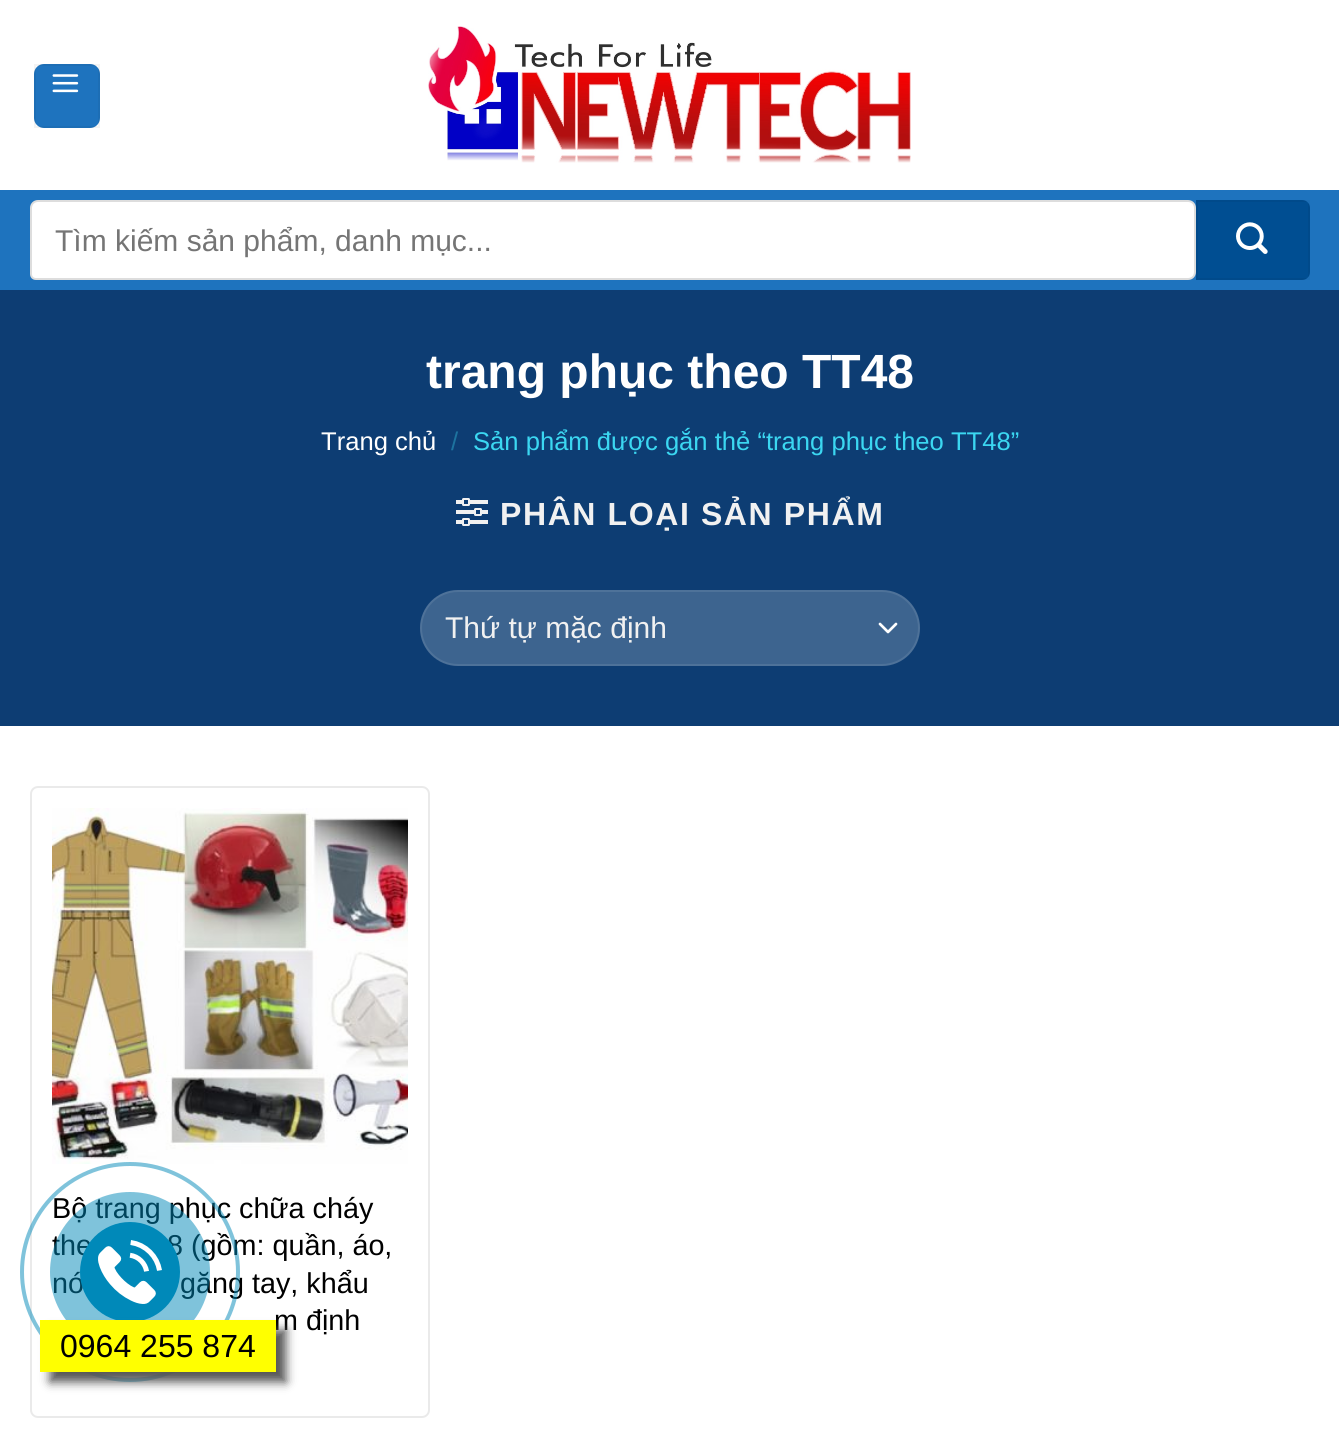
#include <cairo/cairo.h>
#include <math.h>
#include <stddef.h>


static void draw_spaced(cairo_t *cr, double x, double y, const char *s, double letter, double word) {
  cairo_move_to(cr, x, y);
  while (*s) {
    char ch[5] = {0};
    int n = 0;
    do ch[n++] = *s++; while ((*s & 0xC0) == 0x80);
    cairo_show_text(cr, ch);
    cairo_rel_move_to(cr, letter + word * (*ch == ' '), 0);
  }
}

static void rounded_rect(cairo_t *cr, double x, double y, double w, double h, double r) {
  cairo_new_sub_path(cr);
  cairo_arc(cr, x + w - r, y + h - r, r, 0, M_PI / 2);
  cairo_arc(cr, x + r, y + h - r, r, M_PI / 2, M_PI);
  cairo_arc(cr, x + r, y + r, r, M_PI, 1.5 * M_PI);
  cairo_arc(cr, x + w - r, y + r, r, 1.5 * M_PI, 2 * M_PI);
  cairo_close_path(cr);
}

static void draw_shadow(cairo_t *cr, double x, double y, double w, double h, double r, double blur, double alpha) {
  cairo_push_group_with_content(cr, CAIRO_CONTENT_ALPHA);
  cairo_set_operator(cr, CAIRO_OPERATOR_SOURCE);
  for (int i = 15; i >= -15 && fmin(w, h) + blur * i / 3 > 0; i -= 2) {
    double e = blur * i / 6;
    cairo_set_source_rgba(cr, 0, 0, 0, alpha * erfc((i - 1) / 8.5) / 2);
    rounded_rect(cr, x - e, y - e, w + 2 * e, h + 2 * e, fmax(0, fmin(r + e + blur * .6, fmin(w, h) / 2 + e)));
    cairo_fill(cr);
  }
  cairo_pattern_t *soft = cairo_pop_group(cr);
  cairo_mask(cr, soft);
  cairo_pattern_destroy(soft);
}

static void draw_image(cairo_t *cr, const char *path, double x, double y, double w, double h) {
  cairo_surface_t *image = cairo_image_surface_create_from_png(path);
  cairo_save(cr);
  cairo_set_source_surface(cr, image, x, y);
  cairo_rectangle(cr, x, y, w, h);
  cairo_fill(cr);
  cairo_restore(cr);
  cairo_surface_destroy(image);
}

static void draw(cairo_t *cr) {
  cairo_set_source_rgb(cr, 1, 1, 1);
  cairo_paint(cr);
  cairo_set_source_rgb(cr, 30 / 255.0, 115 / 255.0, 190 / 255.0);
  rounded_rect(cr, 34, 64, 66, 64, 10);
  cairo_fill(cr);
  cairo_rectangle(cr, 35, 65, 64, 62);
  cairo_set_source_rgba(cr, 0, 0, 0, 0.05);
  cairo_stroke(cr);
  draw_image(cr, "images/1.png", 52, 74, 27, 19);
  draw_image(cr, "images/2.png", 428, 26, 483, 137);
  cairo_set_source_rgb(cr, 30 / 255.0, 115 / 255.0, 190 / 255.0);
  cairo_rectangle(cr, 0, 190, 1339, 100);
  cairo_fill(cr);
  cairo_set_source_rgb(cr, 1, 1, 1);
  cairo_new_path(cr);
  cairo_move_to(cr, 38, 201);
  cairo_line_to(cr, 1188, 201);
  cairo_curve_to(cr, 1192, 201, 1195, 204, 1195, 208);
  cairo_line_to(cr, 1195, 272);
  cairo_curve_to(cr, 1195, 276, 1192, 279, 1188, 279);
  cairo_line_to(cr, 36, 279);
  cairo_curve_to(cr, 33, 279, 31, 277, 31, 274);
  cairo_line_to(cr, 31, 208);
  cairo_curve_to(cr, 31, 204, 34, 201, 38, 201);
  cairo_close_path(cr);
  cairo_fill_preserve(cr);
  cairo_set_source_rgb(cr, 221 / 255.0, 221 / 255.0, 221 / 255.0);
  cairo_stroke(cr);
  cairo_set_source_rgb(cr, 0, 78 / 255.0, 146 / 255.0);
  cairo_new_path(cr);
  cairo_move_to(cr, 1196, 200);
  cairo_line_to(cr, 1302, 200);
  cairo_curve_to(cr, 1306.5, 200, 1310, 203.5, 1310, 208);
  cairo_line_to(cr, 1310, 272);
  cairo_curve_to(cr, 1310, 276.5, 1306.5, 280, 1302, 280);
  cairo_line_to(cr, 1196, 280);
  cairo_close_path(cr);
  cairo_fill(cr);
  cairo_rectangle(cr, 1197, 201, 112, 78);
  cairo_set_source_rgba(cr, 0, 0, 0, 0.05);
  cairo_stroke(cr);
  draw_image(cr, "images/3.png", 1236, 222, 32, 32);
  cairo_set_source_rgb(cr, 13 / 255.0, 61 / 255.0, 115 / 255.0);
  cairo_rectangle(cr, 0, 290, 1339, 436);
  cairo_fill(cr);
  draw_image(cr, "images/4.png", 456, 498, 32, 28);
  cairo_set_source_rgb(cr, 61 / 255.0, 100 / 255.0, 143 / 255.0);
  rounded_rect(cr, 420, 590, 500, 76, 38);
  cairo_fill(cr);
  cairo_new_path(cr);
  cairo_move_to(cr, 880, 624);
  cairo_line_to(cr, 888, 632);
  cairo_line_to(cr, 896, 624);
  cairo_set_source_rgb(cr, 1, 1, 1);
  cairo_set_line_width(cr, 2.7);
  cairo_set_line_cap(cr, CAIRO_LINE_CAP_ROUND);
  cairo_set_line_join(cr, CAIRO_LINE_JOIN_ROUND);
  cairo_stroke(cr);
  rounded_rect(cr, 421, 591, 498, 74, 37);
  cairo_set_source_rgba(cr, 1, 1, 1, 0.09);
  cairo_set_line_width(cr, 2);
  cairo_set_line_cap(cr, CAIRO_LINE_CAP_BUTT);
  cairo_set_line_join(cr, CAIRO_LINE_JOIN_MITER);
  cairo_stroke(cr);
  rounded_rect(cr, 31, 787, 398, 630, 7);
  cairo_set_source_rgb(cr, 234 / 255.0, 234 / 255.0, 234 / 255.0);
  cairo_stroke(cr);
  draw_image(cr, "images/5.png", 52, 808, 356, 356);
  cairo_select_font_face(cr, "Liberation Sans", CAIRO_FONT_SLANT_NORMAL, CAIRO_FONT_WEIGHT_NORMAL);
  cairo_set_font_size(cr, 30);
  cairo_set_source_rgb(cr, 117 / 255.0, 117 / 255.0, 117 / 255.0);
  cairo_move_to(cr, 55, 251);
  cairo_show_text(cr, "Tìm kiếm sản phẩm, danh mục...");
  cairo_select_font_face(cr, "Liberation Sans", CAIRO_FONT_SLANT_NORMAL, CAIRO_FONT_WEIGHT_BOLD);
  cairo_set_font_size(cr, 48);
  cairo_set_source_rgb(cr, 1, 1, 1);
  cairo_move_to(cr, 426, 388);
  cairo_show_text(cr, "trang phục theo TT48");
  cairo_select_font_face(cr, "Liberation Sans", CAIRO_FONT_SLANT_NORMAL, CAIRO_FONT_WEIGHT_NORMAL);
  cairo_set_font_size(cr, 25.6);
  cairo_move_to(cr, 321, 450);
  cairo_show_text(cr, "Trang chủ");
  cairo_set_source_rgb(cr, 29 / 255.0, 115 / 255.0, 159 / 255.0);
  cairo_move_to(cr, 451, 450);
  cairo_show_text(cr, "/");
  cairo_set_source_rgb(cr, 59 / 255.0, 215 / 255.0, 241 / 255.0);
  cairo_move_to(cr, 473, 450);
  cairo_show_text(cr, "Sản phẩm được gắn thẻ “trang phục theo TT48”");
  cairo_select_font_face(cr, "Liberation Sans", CAIRO_FONT_SLANT_NORMAL, CAIRO_FONT_WEIGHT_BOLD);
  cairo_set_font_size(cr, 32);
  cairo_set_source_rgb(cr, 241 / 255.0, 241 / 255.0, 241 / 255.0);
  draw_spaced(cr, 500, 525, "PHÂN LOẠI SẢN PHẨM", 1.6, 0);
  cairo_select_font_face(cr, "Liberation Sans", CAIRO_FONT_SLANT_NORMAL, CAIRO_FONT_WEIGHT_NORMAL);
  cairo_set_font_size(cr, 30);
  cairo_move_to(cr, 445, 638);
  cairo_show_text(cr, "Thứ tự mặc định");
  cairo_set_font_size(cr, 28.75);
  cairo_set_source_rgb(cr, 0, 0, 0);
  cairo_move_to(cr, 52, 1218);
  cairo_show_text(cr, "Bộ trang phục chữa cháy");
  cairo_move_to(cr, 52, 1255);
  cairo_show_text(cr, "the");
  cairo_move_to(cr, 167, 1255);
  cairo_show_text(cr, "8 (gồm: quần, áo,");
  cairo_move_to(cr, 52, 1293);
  cairo_show_text(cr, "nó");
  cairo_move_to(cr, 180, 1293);
  cairo_show_text(cr, "găng tay, khẩu");
  cairo_move_to(cr, 274, 1330);
  cairo_show_text(cr, "m định");
  cairo_new_path(cr);
  cairo_arc(cr, 130, 1272, 108, 0, 2 * M_PI);
  cairo_set_source_rgba(cr, 0, 137 / 255.0, 185 / 255.0, 0.5);
  cairo_set_line_width(cr, 4);
  cairo_stroke(cr);
  cairo_arc(cr, 130, 1272, 80, 0, 2 * M_PI);
  cairo_fill(cr);
  cairo_set_source_rgb(cr, 0, 137 / 255.0, 185 / 255.0);
  cairo_arc(cr, 130, 1272, 50, 0, 2 * M_PI);
  cairo_fill(cr);
  draw_image(cr, "images/6.png", 98, 1240, 64, 64);
  cairo_set_source_rgb(cr, 85 / 255.0, 85 / 255.0, 85 / 255.0);
  draw_shadow(cr, 50, 1330, 236, 52, 0, 5, 1);
  cairo_set_source_rgb(cr, 1, 1, 0);
  cairo_rectangle(cr, 40, 1320, 236, 52);
  cairo_fill(cr);
  cairo_set_font_size(cr, 32);
  cairo_set_source_rgb(cr, 0, 0, 0);
  cairo_move_to(cr, 60, 1357);
  cairo_show_text(cr, "0964 255 874");
}

int main(void) {
  cairo_surface_t *surface = cairo_image_surface_create(CAIRO_FORMAT_RGB24, 1339, 1431);
  cairo_t *cr = cairo_create(surface);
  cairo_font_options_t *options = cairo_font_options_create();
  cairo_font_options_set_hint_metrics(options, CAIRO_HINT_METRICS_OFF);
  cairo_font_options_set_hint_style(options, CAIRO_HINT_STYLE_NONE);
  cairo_set_font_options(cr, options);
  cairo_set_miter_limit(cr, 4);
  draw(cr);
  cairo_surface_write_to_png(surface, "out.png");
  cairo_font_options_destroy(options);
  cairo_destroy(cr);
  cairo_surface_destroy(surface);
  return 0;
}
